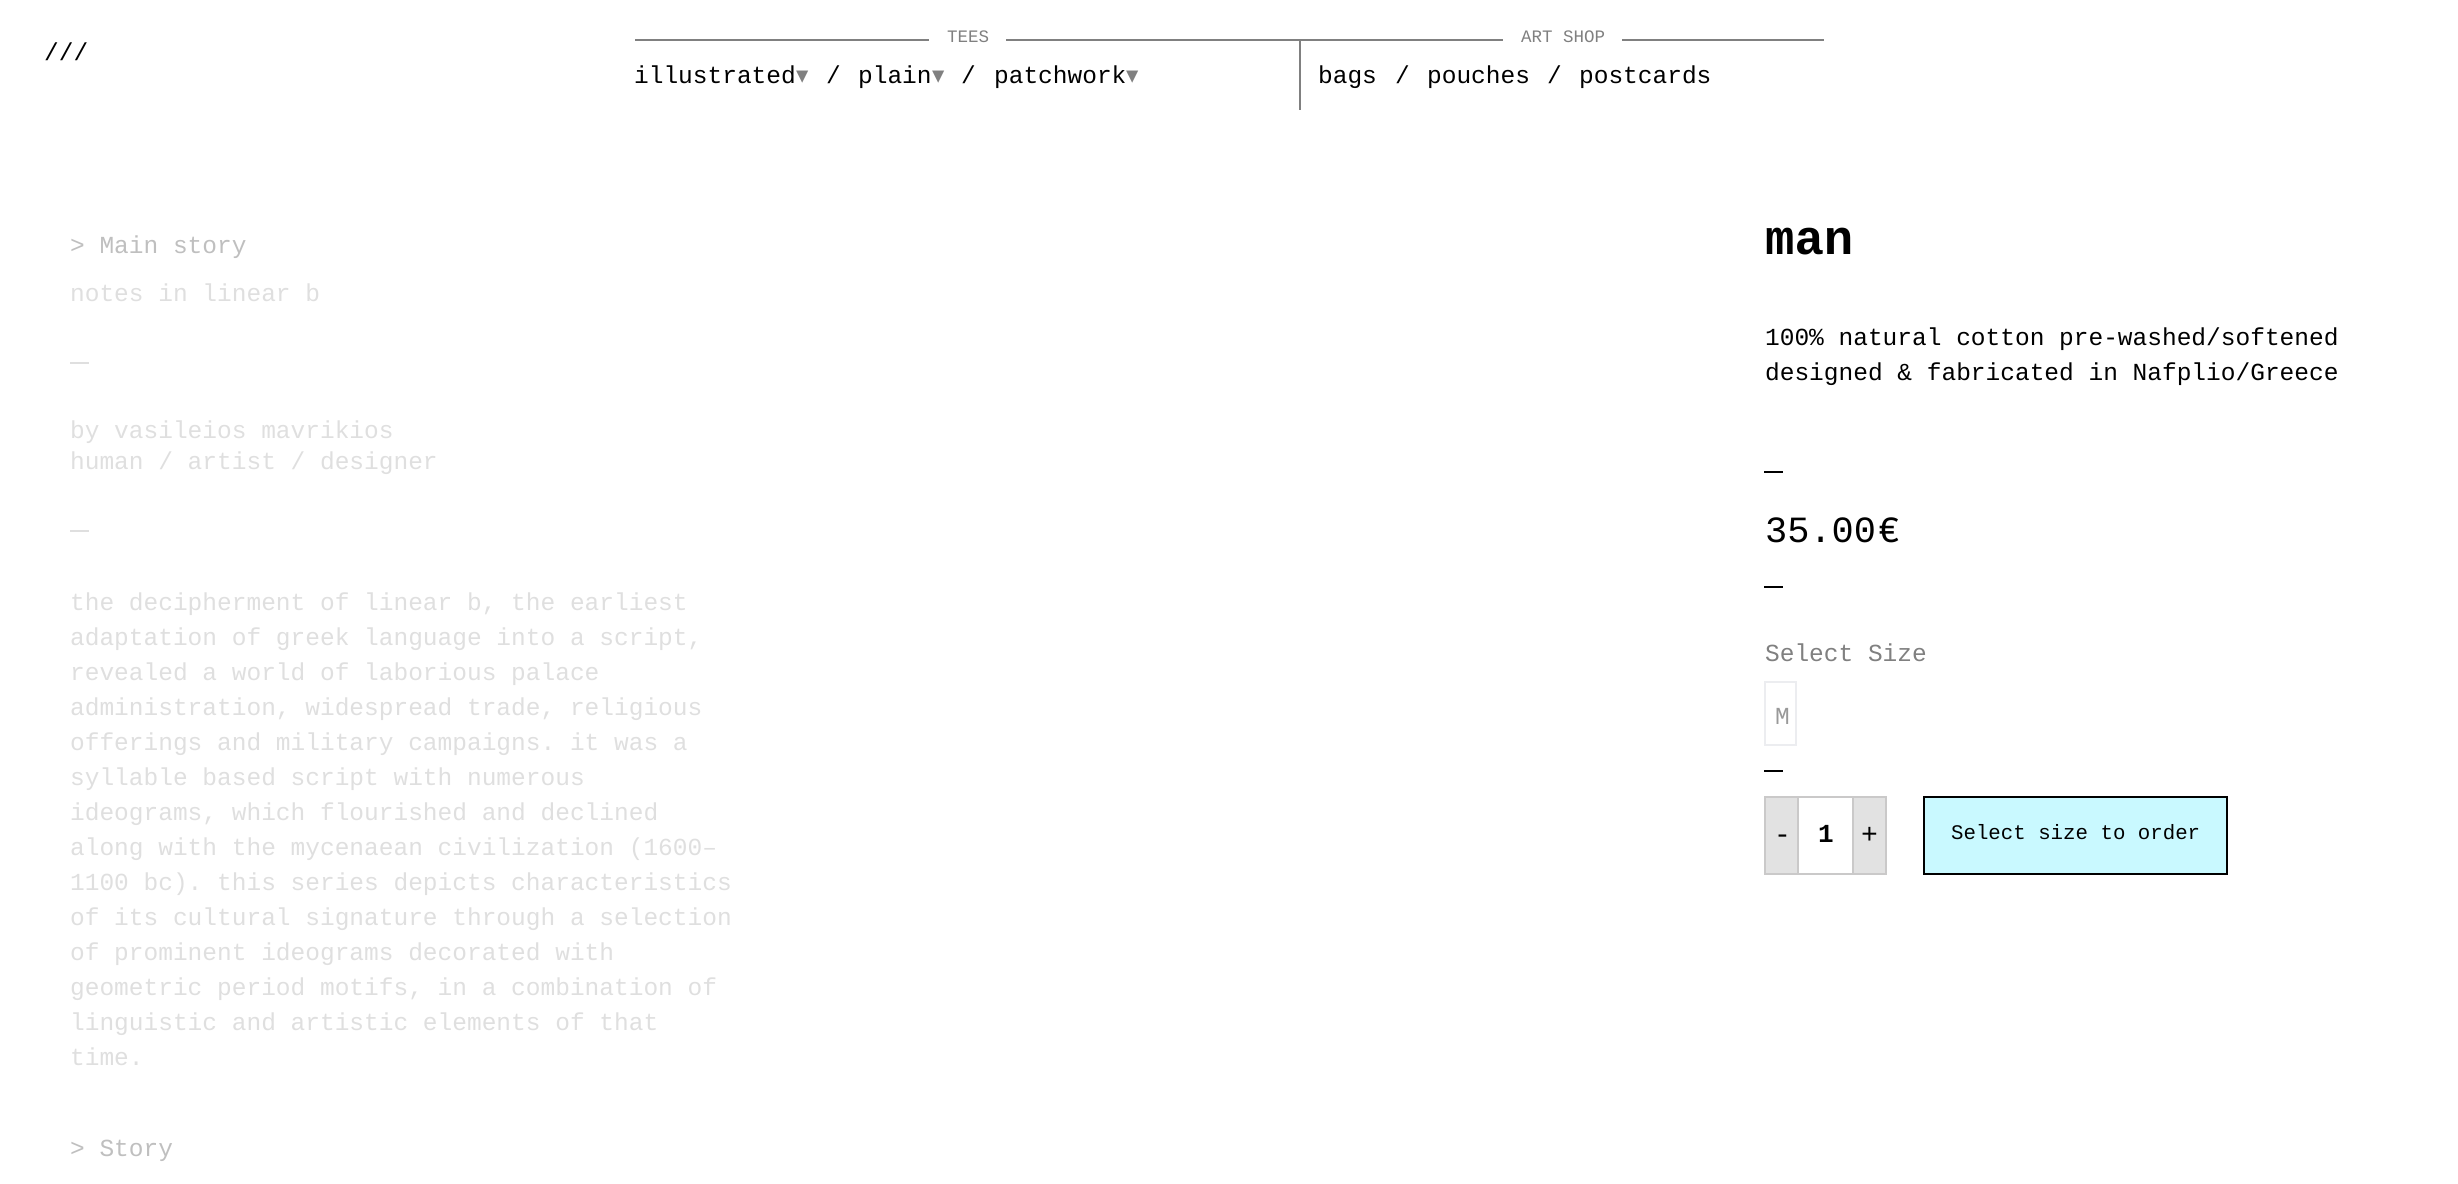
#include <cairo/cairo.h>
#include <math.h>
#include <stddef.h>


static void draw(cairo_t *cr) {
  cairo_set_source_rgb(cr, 1, 1, 1);
  cairo_paint(cr);
  cairo_set_source_rgb(cr, 128 / 255.0, 128 / 255.0, 128 / 255.0);
  cairo_rectangle(cr, 635, 39, 1189, 2);
  cairo_fill(cr);
  cairo_set_source_rgb(cr, 1, 1, 1);
  cairo_rectangle(cr, 929, 39, 77, 2);
  cairo_fill(cr);
  cairo_rectangle(cr, 1503, 39, 119, 2);
  cairo_fill(cr);
  cairo_set_source_rgb(cr, 128 / 255.0, 128 / 255.0, 128 / 255.0);
  cairo_rectangle(cr, 1299, 40, 2, 70);
  cairo_fill(cr);
  cairo_set_source_rgb(cr, 223 / 255.0, 223 / 255.0, 223 / 255.0);
  cairo_rectangle(cr, 70, 362, 19, 2);
  cairo_fill(cr);
  cairo_rectangle(cr, 70, 530, 19, 2);
  cairo_fill(cr);
  cairo_set_source_rgb(cr, 0, 0, 0);
  cairo_rectangle(cr, 1764, 471, 19, 2);
  cairo_fill(cr);
  cairo_rectangle(cr, 1764, 586, 19, 2);
  cairo_fill(cr);
  cairo_rectangle(cr, 1765, 682, 31, 63);
  cairo_set_source_rgb(cr, 236 / 255.0, 237 / 255.0, 240 / 255.0);
  cairo_stroke(cr);
  cairo_set_source_rgb(cr, 0, 0, 0);
  cairo_rectangle(cr, 1764, 770, 19, 2);
  cairo_fill(cr);
  cairo_set_source_rgb(cr, 226 / 255.0, 226 / 255.0, 226 / 255.0);
  cairo_rectangle(cr, 1765, 797, 33, 77);
  cairo_fill_preserve(cr);
  cairo_set_source_rgb(cr, 202 / 255.0, 201 / 255.0, 201 / 255.0);
  cairo_stroke(cr);
  cairo_rectangle(cr, 1799, 796, 53, 2);
  cairo_fill(cr);
  cairo_rectangle(cr, 1799, 873, 53, 2);
  cairo_fill(cr);
  cairo_set_source_rgb(cr, 226 / 255.0, 226 / 255.0, 226 / 255.0);
  cairo_rectangle(cr, 1853, 797, 33, 77);
  cairo_fill_preserve(cr);
  cairo_set_source_rgb(cr, 202 / 255.0, 201 / 255.0, 201 / 255.0);
  cairo_stroke(cr);
  cairo_set_source_rgb(cr, 201 / 255.0, 249 / 255.0, 1);
  cairo_rectangle(cr, 1924, 797, 303, 77);
  cairo_fill_preserve(cr);
  cairo_set_source_rgb(cr, 0, 0, 0);
  cairo_stroke(cr);
  cairo_select_font_face(cr, "Liberation Mono", CAIRO_FONT_SLANT_NORMAL, CAIRO_FONT_WEIGHT_NORMAL);
  cairo_set_font_size(cr, 24.5);
  cairo_move_to(cr, 44, 60);
  cairo_show_text(cr, "///");
  cairo_set_font_size(cr, 17.5);
  cairo_set_source_rgb(cr, 128 / 255.0, 128 / 255.0, 128 / 255.0);
  cairo_move_to(cr, 947, 42);
  cairo_show_text(cr, "TEES");
  cairo_move_to(cr, 1521, 42);
  cairo_show_text(cr, "ART SHOP");
  cairo_set_font_size(cr, 24.5);
  cairo_set_source_rgb(cr, 0, 0, 0);
  cairo_move_to(cr, 634, 83);
  cairo_show_text(cr, "illustrated");
  cairo_select_font_face(cr, "DejaVu Sans", CAIRO_FONT_SLANT_NORMAL, CAIRO_FONT_WEIGHT_NORMAL);
  cairo_set_source_rgb(cr, 128 / 255.0, 128 / 255.0, 128 / 255.0);
  cairo_move_to(cr, 796, 83);
  cairo_show_text(cr, "▾");
  cairo_select_font_face(cr, "Liberation Mono", CAIRO_FONT_SLANT_NORMAL, CAIRO_FONT_WEIGHT_NORMAL);
  cairo_set_source_rgb(cr, 0, 0, 0);
  cairo_move_to(cr, 826, 83);
  cairo_show_text(cr, "/");
  cairo_move_to(cr, 858, 83);
  cairo_show_text(cr, "plain");
  cairo_select_font_face(cr, "DejaVu Sans", CAIRO_FONT_SLANT_NORMAL, CAIRO_FONT_WEIGHT_NORMAL);
  cairo_set_source_rgb(cr, 128 / 255.0, 128 / 255.0, 128 / 255.0);
  cairo_move_to(cr, 932, 83);
  cairo_show_text(cr, "▾");
  cairo_select_font_face(cr, "Liberation Mono", CAIRO_FONT_SLANT_NORMAL, CAIRO_FONT_WEIGHT_NORMAL);
  cairo_set_source_rgb(cr, 0, 0, 0);
  cairo_move_to(cr, 961, 83);
  cairo_show_text(cr, "/");
  cairo_move_to(cr, 994, 83);
  cairo_show_text(cr, "patchwork");
  cairo_select_font_face(cr, "DejaVu Sans", CAIRO_FONT_SLANT_NORMAL, CAIRO_FONT_WEIGHT_NORMAL);
  cairo_set_source_rgb(cr, 128 / 255.0, 128 / 255.0, 128 / 255.0);
  cairo_move_to(cr, 1126, 83);
  cairo_show_text(cr, "▾");
  cairo_select_font_face(cr, "Liberation Mono", CAIRO_FONT_SLANT_NORMAL, CAIRO_FONT_WEIGHT_NORMAL);
  cairo_set_source_rgb(cr, 0, 0, 0);
  cairo_move_to(cr, 1318, 83);
  cairo_show_text(cr, "bags");
  cairo_move_to(cr, 1395, 83);
  cairo_show_text(cr, "/");
  cairo_move_to(cr, 1427, 83);
  cairo_show_text(cr, "pouches");
  cairo_move_to(cr, 1547, 83);
  cairo_show_text(cr, "/");
  cairo_move_to(cr, 1579, 83);
  cairo_show_text(cr, "postcards");
  cairo_set_source_rgb(cr, 191 / 255.0, 191 / 255.0, 191 / 255.0);
  cairo_move_to(cr, 70, 253);
  cairo_show_text(cr, "> Main story");
  cairo_set_source_rgb(cr, 223 / 255.0, 223 / 255.0, 223 / 255.0);
  cairo_move_to(cr, 70, 301);
  cairo_show_text(cr, "notes in linear b");
  cairo_move_to(cr, 70, 438);
  cairo_show_text(cr, "by vasileios mavrikios");
  cairo_move_to(cr, 70, 469);
  cairo_show_text(cr, "human / artist / designer");
  cairo_move_to(cr, 70, 610);
  cairo_show_text(cr, "the decipherment of linear b, the earliest");
  cairo_move_to(cr, 70, 645);
  cairo_show_text(cr, "adaptation of greek language into a script,");
  cairo_move_to(cr, 70, 680);
  cairo_show_text(cr, "revealed a world of laborious palace");
  cairo_move_to(cr, 70, 715);
  cairo_show_text(cr, "administration, widespread trade, religious");
  cairo_move_to(cr, 70, 750);
  cairo_show_text(cr, "offerings and military campaigns. it was a");
  cairo_move_to(cr, 70, 785);
  cairo_show_text(cr, "syllable based script with numerous");
  cairo_move_to(cr, 70, 820);
  cairo_show_text(cr, "ideograms, which flourished and declined");
  cairo_move_to(cr, 70, 855);
  cairo_show_text(cr, "along with the mycenaean civilization (1600–");
  cairo_move_to(cr, 70, 890);
  cairo_show_text(cr, "1100 bc). this series depicts characteristics");
  cairo_move_to(cr, 70, 925);
  cairo_show_text(cr, "of its cultural signature through a selection");
  cairo_move_to(cr, 70, 960);
  cairo_show_text(cr, "of prominent ideograms decorated with");
  cairo_move_to(cr, 70, 995);
  cairo_show_text(cr, "geometric period motifs, in a combination of");
  cairo_move_to(cr, 70, 1030);
  cairo_show_text(cr, "linguistic and artistic elements of that");
  cairo_move_to(cr, 70, 1065);
  cairo_show_text(cr, "time.");
  cairo_set_source_rgb(cr, 191 / 255.0, 191 / 255.0, 191 / 255.0);
  cairo_move_to(cr, 70, 1156);
  cairo_show_text(cr, "> Story");
  cairo_select_font_face(cr, "Liberation Mono", CAIRO_FONT_SLANT_NORMAL, CAIRO_FONT_WEIGHT_BOLD);
  cairo_set_font_size(cr, 49);
  cairo_set_source_rgb(cr, 0, 0, 0);
  cairo_move_to(cr, 1765, 254);
  cairo_show_text(cr, "man");
  cairo_select_font_face(cr, "Liberation Mono", CAIRO_FONT_SLANT_NORMAL, CAIRO_FONT_WEIGHT_NORMAL);
  cairo_set_font_size(cr, 24.5);
  cairo_move_to(cr, 1765, 345);
  cairo_show_text(cr, "100% natural cotton pre-washed/softened");
  cairo_move_to(cr, 1765, 380);
  cairo_show_text(cr, "designed & fabricated in Nafplio/Greece");
  cairo_set_font_size(cr, 37);
  cairo_move_to(cr, 1765, 542);
  cairo_show_text(cr, "35.00");
  cairo_move_to(cr, 1878, 542);
  cairo_show_text(cr, "€");
  cairo_set_font_size(cr, 24.5);
  cairo_set_source_rgb(cr, 128 / 255.0, 128 / 255.0, 128 / 255.0);
  cairo_move_to(cr, 1765, 661);
  cairo_show_text(cr, "Select Size");
  cairo_set_source_rgb(cr, 153 / 255.0, 153 / 255.0, 153 / 255.0);
  cairo_move_to(cr, 1775, 724);
  cairo_show_text(cr, "M");
  cairo_set_font_size(cr, 28);
  cairo_set_source_rgb(cr, 0, 0, 0);
  cairo_move_to(cr, 1774, 843);
  cairo_show_text(cr, "-");
  cairo_select_font_face(cr, "Liberation Mono", CAIRO_FONT_SLANT_NORMAL, CAIRO_FONT_WEIGHT_BOLD);
  cairo_set_font_size(cr, 26);
  cairo_move_to(cr, 1818, 842);
  cairo_show_text(cr, "1");
  cairo_select_font_face(cr, "Liberation Mono", CAIRO_FONT_SLANT_NORMAL, CAIRO_FONT_WEIGHT_NORMAL);
  cairo_set_font_size(cr, 28);
  cairo_move_to(cr, 1861, 843);
  cairo_show_text(cr, "+");
  cairo_set_font_size(cr, 20.75);
  cairo_move_to(cr, 1951, 839);
  cairo_show_text(cr, "Select size to order");
}

int main(void) {
  cairo_surface_t *surface = cairo_image_surface_create(CAIRO_FORMAT_RGB24, 2458, 1184);
  cairo_t *cr = cairo_create(surface);
  cairo_font_options_t *options = cairo_font_options_create();
  cairo_font_options_set_hint_metrics(options, CAIRO_HINT_METRICS_OFF);
  cairo_font_options_set_hint_style(options, CAIRO_HINT_STYLE_NONE);
  cairo_set_font_options(cr, options);
  cairo_set_miter_limit(cr, 4);
  draw(cr);
  cairo_surface_write_to_png(surface, "out.png");
  cairo_font_options_destroy(options);
  cairo_destroy(cr);
  cairo_surface_destroy(surface);
  return 0;
}
